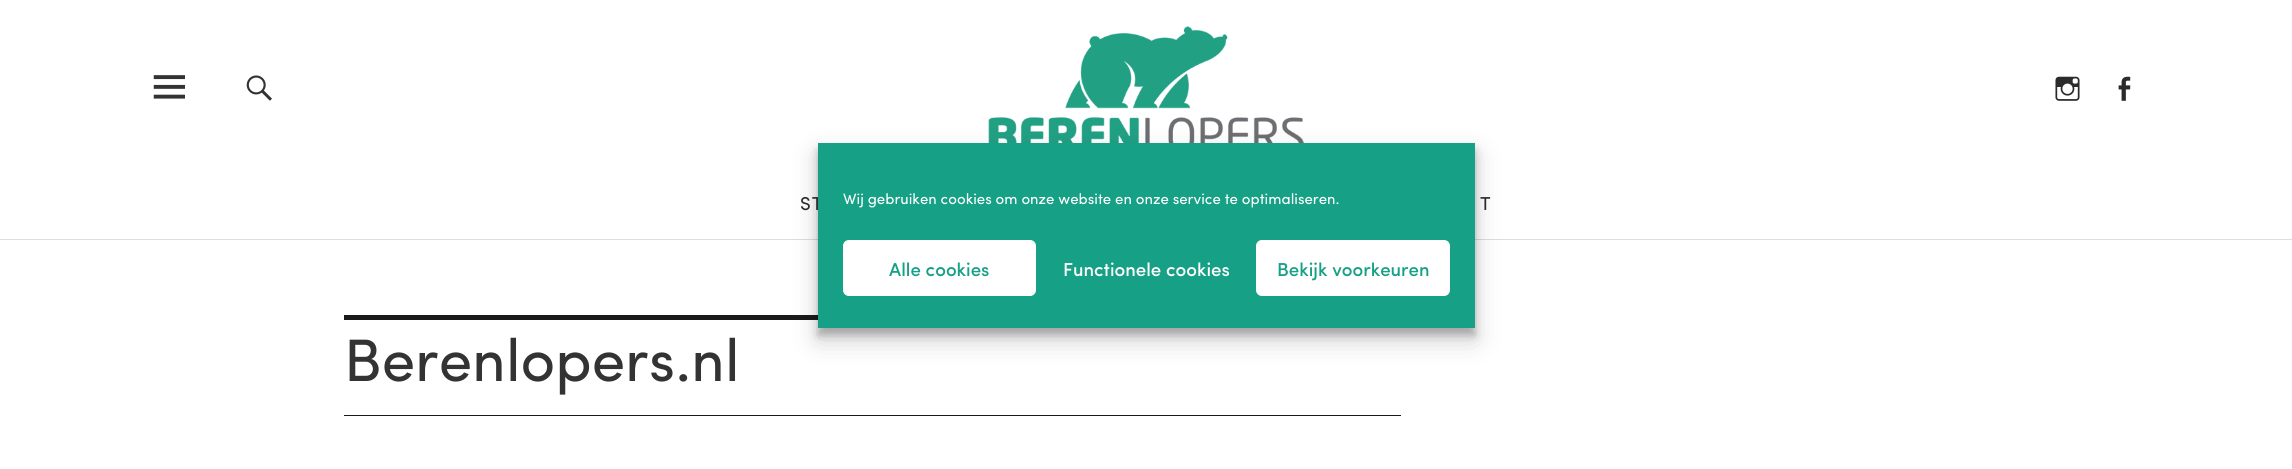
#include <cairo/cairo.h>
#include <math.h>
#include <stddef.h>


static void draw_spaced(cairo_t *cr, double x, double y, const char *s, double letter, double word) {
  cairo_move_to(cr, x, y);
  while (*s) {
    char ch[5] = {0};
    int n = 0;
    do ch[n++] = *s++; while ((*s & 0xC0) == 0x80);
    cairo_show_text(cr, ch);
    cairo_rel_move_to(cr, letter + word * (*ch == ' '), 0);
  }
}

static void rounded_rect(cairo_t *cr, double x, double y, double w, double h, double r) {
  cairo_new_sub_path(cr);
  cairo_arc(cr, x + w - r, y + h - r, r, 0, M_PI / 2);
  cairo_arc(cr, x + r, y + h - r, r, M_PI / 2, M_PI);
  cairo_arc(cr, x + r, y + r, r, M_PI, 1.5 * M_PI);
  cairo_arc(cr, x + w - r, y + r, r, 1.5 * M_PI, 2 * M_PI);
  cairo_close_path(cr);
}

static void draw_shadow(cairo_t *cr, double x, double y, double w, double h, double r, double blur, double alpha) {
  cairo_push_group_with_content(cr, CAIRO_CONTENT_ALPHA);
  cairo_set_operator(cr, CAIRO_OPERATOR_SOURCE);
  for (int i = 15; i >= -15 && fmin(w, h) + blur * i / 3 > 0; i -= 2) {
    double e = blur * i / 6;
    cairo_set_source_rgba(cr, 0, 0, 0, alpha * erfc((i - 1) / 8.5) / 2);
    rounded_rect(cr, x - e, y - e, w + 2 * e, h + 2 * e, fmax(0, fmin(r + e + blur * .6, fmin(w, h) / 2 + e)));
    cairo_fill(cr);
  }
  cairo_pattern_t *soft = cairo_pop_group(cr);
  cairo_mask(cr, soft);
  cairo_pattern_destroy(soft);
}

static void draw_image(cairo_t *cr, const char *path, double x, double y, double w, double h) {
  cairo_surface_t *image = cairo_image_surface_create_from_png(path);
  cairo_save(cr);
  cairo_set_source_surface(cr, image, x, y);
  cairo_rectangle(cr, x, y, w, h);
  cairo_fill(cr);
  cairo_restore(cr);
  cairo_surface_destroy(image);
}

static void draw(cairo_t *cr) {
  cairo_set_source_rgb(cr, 1, 1, 1);
  cairo_paint(cr);
  cairo_set_source_rgb(cr, 221 / 255.0, 221 / 255.0, 221 / 255.0);
  cairo_rectangle(cr, 0, 239, 2292, 1);
  cairo_fill(cr);
  draw_image(cr, "images/2.png", 988, 26, 316, 117);
  cairo_set_source_rgb(cr, 26 / 255.0, 26 / 255.0, 26 / 255.0);
  cairo_rectangle(cr, 344, 315, 474, 5);
  cairo_fill(cr);
  cairo_set_source_rgb(cr, 0, 0, 0);
  draw_shadow(cr, 818, 150, 657, 185, 0, 4, 0.23);
  draw_shadow(cr, 818, 155, 657, 185, 0, 12.5, 0.19);
  draw_image(cr, "images/1.png", 153, 75, 32, 24);
  draw_image(cr, "images/3.png", 2055, 76, 25, 25);
  draw_image(cr, "images/4.png", 2118, 76, 13, 25);
  draw_image(cr, "images/5.png", 246, 75, 26, 26);
  cairo_set_source_rgb(cr, 26 / 255.0, 26 / 255.0, 26 / 255.0);
  cairo_rectangle(cr, 344, 415, 1057, 1);
  cairo_fill(cr);
  cairo_select_font_face(cr, "Sofia", CAIRO_FONT_SLANT_NORMAL, CAIRO_FONT_WEIGHT_NORMAL);
  cairo_set_font_size(cr, 18.75);
  cairo_set_source_rgb(cr, 43 / 255.0, 43 / 255.0, 43 / 255.0);
  draw_spaced(cr, 800, 210, "ST", 1, 0);
  cairo_set_source_rgb(cr, 22 / 255.0, 160 / 255.0, 133 / 255.0);
  cairo_rectangle(cr, 818, 143, 657, 185);
  cairo_fill(cr);
  cairo_set_font_size(cr, 15);
  cairo_set_source_rgb(cr, 1, 1, 1);
  cairo_move_to(cr, 843, 204);
  cairo_show_text(cr, "Wij gebruiken cookies om onze website en onze service te optimaliseren.");
  rounded_rect(cr, 1256.5, 240.5, 193, 55, 5.5);
  cairo_fill_preserve(cr);
  cairo_set_line_width(cr, 1);
  cairo_stroke(cr);
  cairo_select_font_face(cr, "Sofia Medium", CAIRO_FONT_SLANT_NORMAL, CAIRO_FONT_WEIGHT_NORMAL);
  cairo_set_font_size(cr, 18.75);
  cairo_set_source_rgb(cr, 22 / 255.0, 160 / 255.0, 133 / 255.0);
  cairo_move_to(cr, 1277, 276);
  cairo_show_text(cr, "Bekijk voorkeuren");
  cairo_set_source_rgb(cr, 1, 1, 1);
  cairo_move_to(cr, 1063, 276);
  cairo_show_text(cr, "Functionele cookies");
  rounded_rect(cr, 843.5, 240.5, 192, 55, 5.5);
  cairo_fill_preserve(cr);
  cairo_stroke(cr);
  cairo_set_source_rgb(cr, 22 / 255.0, 160 / 255.0, 133 / 255.0);
  cairo_move_to(cr, 889, 276);
  cairo_show_text(cr, "Alle cookies");
  cairo_select_font_face(cr, "Sofia", CAIRO_FONT_SLANT_NORMAL, CAIRO_FONT_WEIGHT_NORMAL);
  cairo_set_source_rgb(cr, 43 / 255.0, 43 / 255.0, 43 / 255.0);
  draw_spaced(cr, 1480, 210, "T", 1, 0);
  cairo_set_font_size(cr, 60);
  cairo_set_source_rgb(cr, 51 / 255.0, 51 / 255.0, 51 / 255.0);
  cairo_move_to(cr, 344, 381);
  cairo_show_text(cr, "Berenlopers.nl");
}

int main(void) {
  cairo_surface_t *surface = cairo_image_surface_create(CAIRO_FORMAT_RGB24, 2292, 469);
  cairo_t *cr = cairo_create(surface);
  cairo_font_options_t *options = cairo_font_options_create();
  cairo_font_options_set_hint_metrics(options, CAIRO_HINT_METRICS_OFF);
  cairo_font_options_set_hint_style(options, CAIRO_HINT_STYLE_NONE);
  cairo_set_font_options(cr, options);
  cairo_set_miter_limit(cr, 4);
  draw(cr);
  cairo_surface_write_to_png(surface, "out.png");
  cairo_font_options_destroy(options);
  cairo_destroy(cr);
  cairo_surface_destroy(surface);
  return 0;
}
